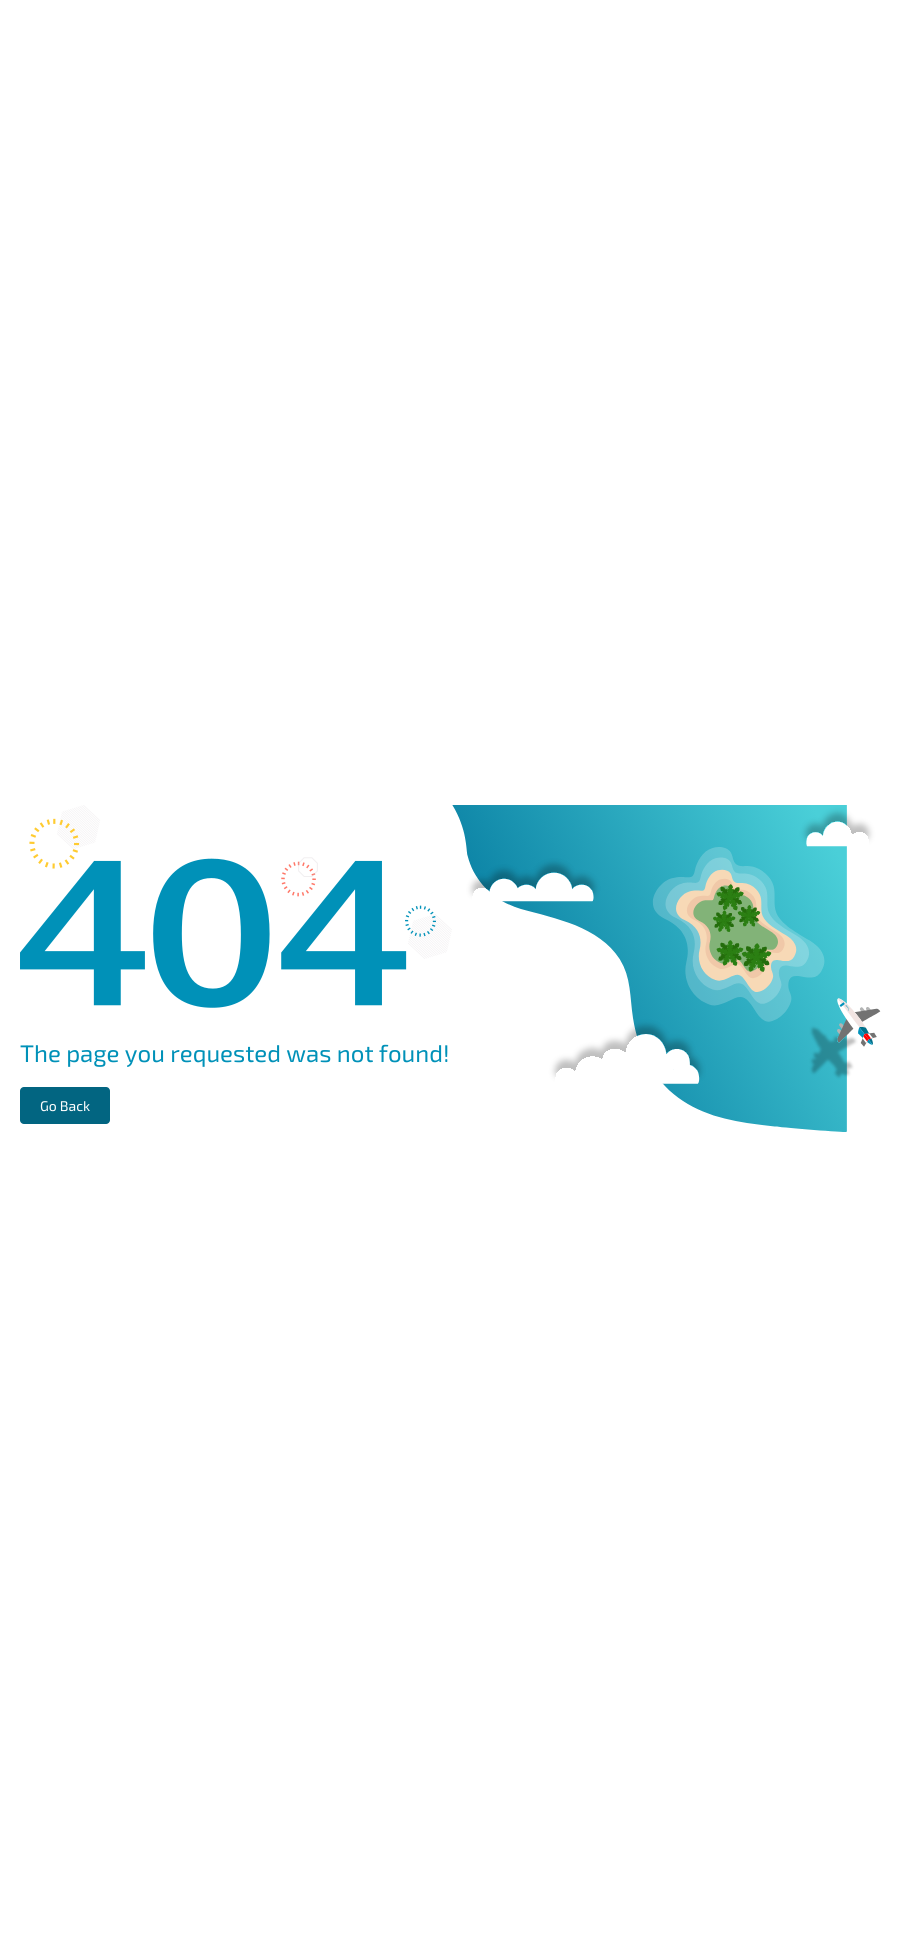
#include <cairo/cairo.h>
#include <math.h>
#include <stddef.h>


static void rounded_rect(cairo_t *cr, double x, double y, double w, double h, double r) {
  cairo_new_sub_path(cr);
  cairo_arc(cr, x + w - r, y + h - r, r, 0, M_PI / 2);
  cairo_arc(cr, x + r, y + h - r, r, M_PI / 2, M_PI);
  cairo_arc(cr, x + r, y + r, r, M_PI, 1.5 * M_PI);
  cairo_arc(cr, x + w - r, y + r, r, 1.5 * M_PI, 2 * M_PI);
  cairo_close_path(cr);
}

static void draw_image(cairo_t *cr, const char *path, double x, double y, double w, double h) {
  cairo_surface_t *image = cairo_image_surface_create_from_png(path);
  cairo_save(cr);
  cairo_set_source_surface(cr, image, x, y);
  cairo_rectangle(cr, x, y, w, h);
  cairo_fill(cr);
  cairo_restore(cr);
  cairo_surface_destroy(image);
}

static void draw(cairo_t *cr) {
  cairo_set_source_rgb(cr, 1, 1, 1);
  cairo_paint(cr);
  draw_image(cr, "images/1.png", 20, 805, 432, 203);
  cairo_set_source_rgb(cr, 2 / 255.0, 101 / 255.0, 129 / 255.0);
  rounded_rect(cr, 20, 1087, 90, 37, 4);
  cairo_fill(cr);
  draw_image(cr, "images/2.png", 452, 805, 429, 327);
  cairo_select_font_face(cr, "Exo 2", CAIRO_FONT_SLANT_NORMAL, CAIRO_FONT_WEIGHT_NORMAL);
  cairo_set_font_size(cr, 24);
  cairo_set_source_rgb(cr, 0, 145 / 255.0, 184 / 255.0);
  cairo_move_to(cr, 20, 1062);
  cairo_show_text(cr, "The page you requested was not found!");
  cairo_set_font_size(cr, 14);
  cairo_set_source_rgb(cr, 1, 1, 1);
  cairo_move_to(cr, 40, 1111);
  cairo_show_text(cr, "Go Back");
}

int main(void) {
  cairo_surface_t *surface = cairo_image_surface_create(CAIRO_FORMAT_RGB24, 904, 1941);
  cairo_t *cr = cairo_create(surface);
  cairo_font_options_t *options = cairo_font_options_create();
  cairo_font_options_set_hint_metrics(options, CAIRO_HINT_METRICS_OFF);
  cairo_font_options_set_hint_style(options, CAIRO_HINT_STYLE_NONE);
  cairo_set_font_options(cr, options);
  cairo_set_miter_limit(cr, 4);
  draw(cr);
  cairo_surface_write_to_png(surface, "out.png");
  cairo_font_options_destroy(options);
  cairo_destroy(cr);
  cairo_surface_destroy(surface);
  return 0;
}
